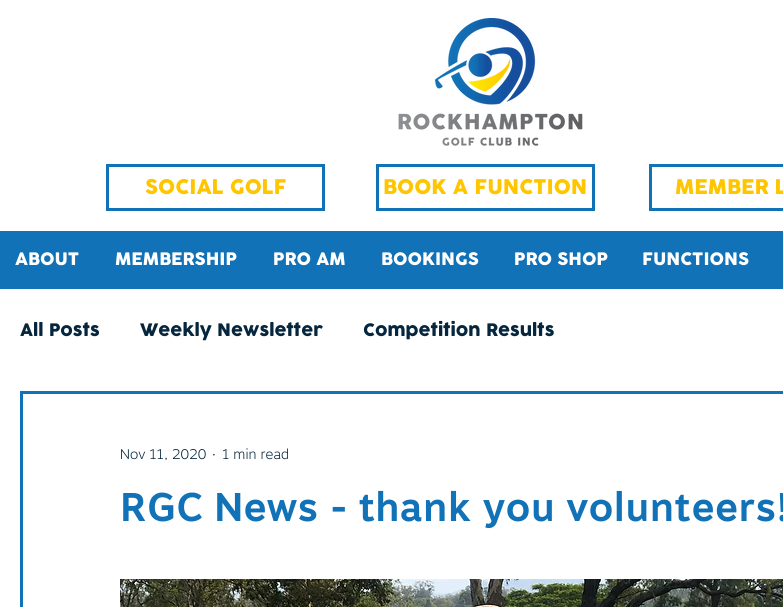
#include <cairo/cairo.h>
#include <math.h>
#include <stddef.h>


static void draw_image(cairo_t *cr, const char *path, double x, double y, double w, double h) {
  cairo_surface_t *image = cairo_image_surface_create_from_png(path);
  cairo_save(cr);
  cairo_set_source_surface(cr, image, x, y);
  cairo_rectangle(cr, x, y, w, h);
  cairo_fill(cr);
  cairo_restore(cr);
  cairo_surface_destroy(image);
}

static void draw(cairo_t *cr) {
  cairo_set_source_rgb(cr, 1, 1, 1);
  cairo_paint(cr);
  draw_image(cr, "images/1.png", 398, 18, 185, 128);
  cairo_rectangle(cr, 107.5, 165.5, 216, 44);
  cairo_set_source_rgb(cr, 17 / 255.0, 114 / 255.0, 183 / 255.0);
  cairo_set_line_width(cr, 3);
  cairo_stroke(cr);
  cairo_rectangle(cr, 377.5, 165.5, 216, 44);
  cairo_stroke(cr);
  cairo_rectangle(cr, 650.5, 165.5, 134, 44);
  cairo_stroke(cr);
  cairo_rectangle(cr, 0, 231, 783, 58);
  cairo_fill(cr);
  cairo_rectangle(cr, 21.5, 392.5, 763, 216);
  cairo_stroke(cr);
  draw_image(cr, "images/2.png", 120, 579, 663, 28);
  cairo_select_font_face(cr, "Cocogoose", CAIRO_FONT_SLANT_NORMAL, CAIRO_FONT_WEIGHT_NORMAL);
  cairo_set_font_size(cr, 20);
  cairo_set_source_rgb(cr, 1, 198 / 255.0, 0);
  cairo_move_to(cr, 145, 194);
  cairo_show_text(cr, "SOCIAL GOLF");
  cairo_move_to(cr, 383, 194);
  cairo_show_text(cr, "BOOK A FUNCTION");
  cairo_move_to(cr, 675, 194);
  cairo_show_text(cr, "MEMBER L");
  cairo_set_font_size(cr, 17);
  cairo_set_source_rgb(cr, 1, 1, 1);
  cairo_move_to(cr, 15, 265);
  cairo_show_text(cr, "ABOUT");
  cairo_move_to(cr, 115, 265);
  cairo_show_text(cr, "MEMBERSHIP");
  cairo_move_to(cr, 273, 265);
  cairo_show_text(cr, "PRO AM");
  cairo_move_to(cr, 381, 265);
  cairo_show_text(cr, "BOOKINGS");
  cairo_move_to(cr, 514, 265);
  cairo_show_text(cr, "PRO SHOP");
  cairo_move_to(cr, 642, 265);
  cairo_show_text(cr, "FUNCTIONS");
  cairo_set_source_rgb(cr, 6 / 255.0, 38 / 255.0, 61 / 255.0);
  cairo_move_to(cr, 20, 336);
  cairo_show_text(cr, "All Posts");
  cairo_move_to(cr, 140, 336);
  cairo_show_text(cr, "Weekly Newsletter");
  cairo_move_to(cr, 363, 336);
  cairo_show_text(cr, "Competition Results");
  cairo_select_font_face(cr, "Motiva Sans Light", CAIRO_FONT_SLANT_NORMAL, CAIRO_FONT_WEIGHT_NORMAL);
  cairo_set_font_size(cr, 14);
  cairo_move_to(cr, 120, 459);
  cairo_show_text(cr, "Nov 11, 2020");
  cairo_move_to(cr, 212, 459);
  cairo_show_text(cr, "·");
  cairo_move_to(cr, 222, 459);
  cairo_show_text(cr, "1 min read");
  cairo_select_font_face(cr, "Motiva Sans", CAIRO_FONT_SLANT_NORMAL, CAIRO_FONT_WEIGHT_BOLD);
  cairo_set_font_size(cr, 40);
  cairo_set_source_rgb(cr, 17 / 255.0, 114 / 255.0, 183 / 255.0);
  cairo_move_to(cr, 120, 521);
  cairo_show_text(cr, "RGC News - thank you volunteers!");
}

int main(void) {
  cairo_surface_t *surface = cairo_image_surface_create(CAIRO_FORMAT_RGB24, 783, 607);
  cairo_t *cr = cairo_create(surface);
  cairo_font_options_t *options = cairo_font_options_create();
  cairo_font_options_set_hint_metrics(options, CAIRO_HINT_METRICS_OFF);
  cairo_font_options_set_hint_style(options, CAIRO_HINT_STYLE_NONE);
  cairo_set_font_options(cr, options);
  cairo_set_miter_limit(cr, 4);
  draw(cr);
  cairo_surface_write_to_png(surface, "out.png");
  cairo_font_options_destroy(options);
  cairo_destroy(cr);
  cairo_surface_destroy(surface);
  return 0;
}
